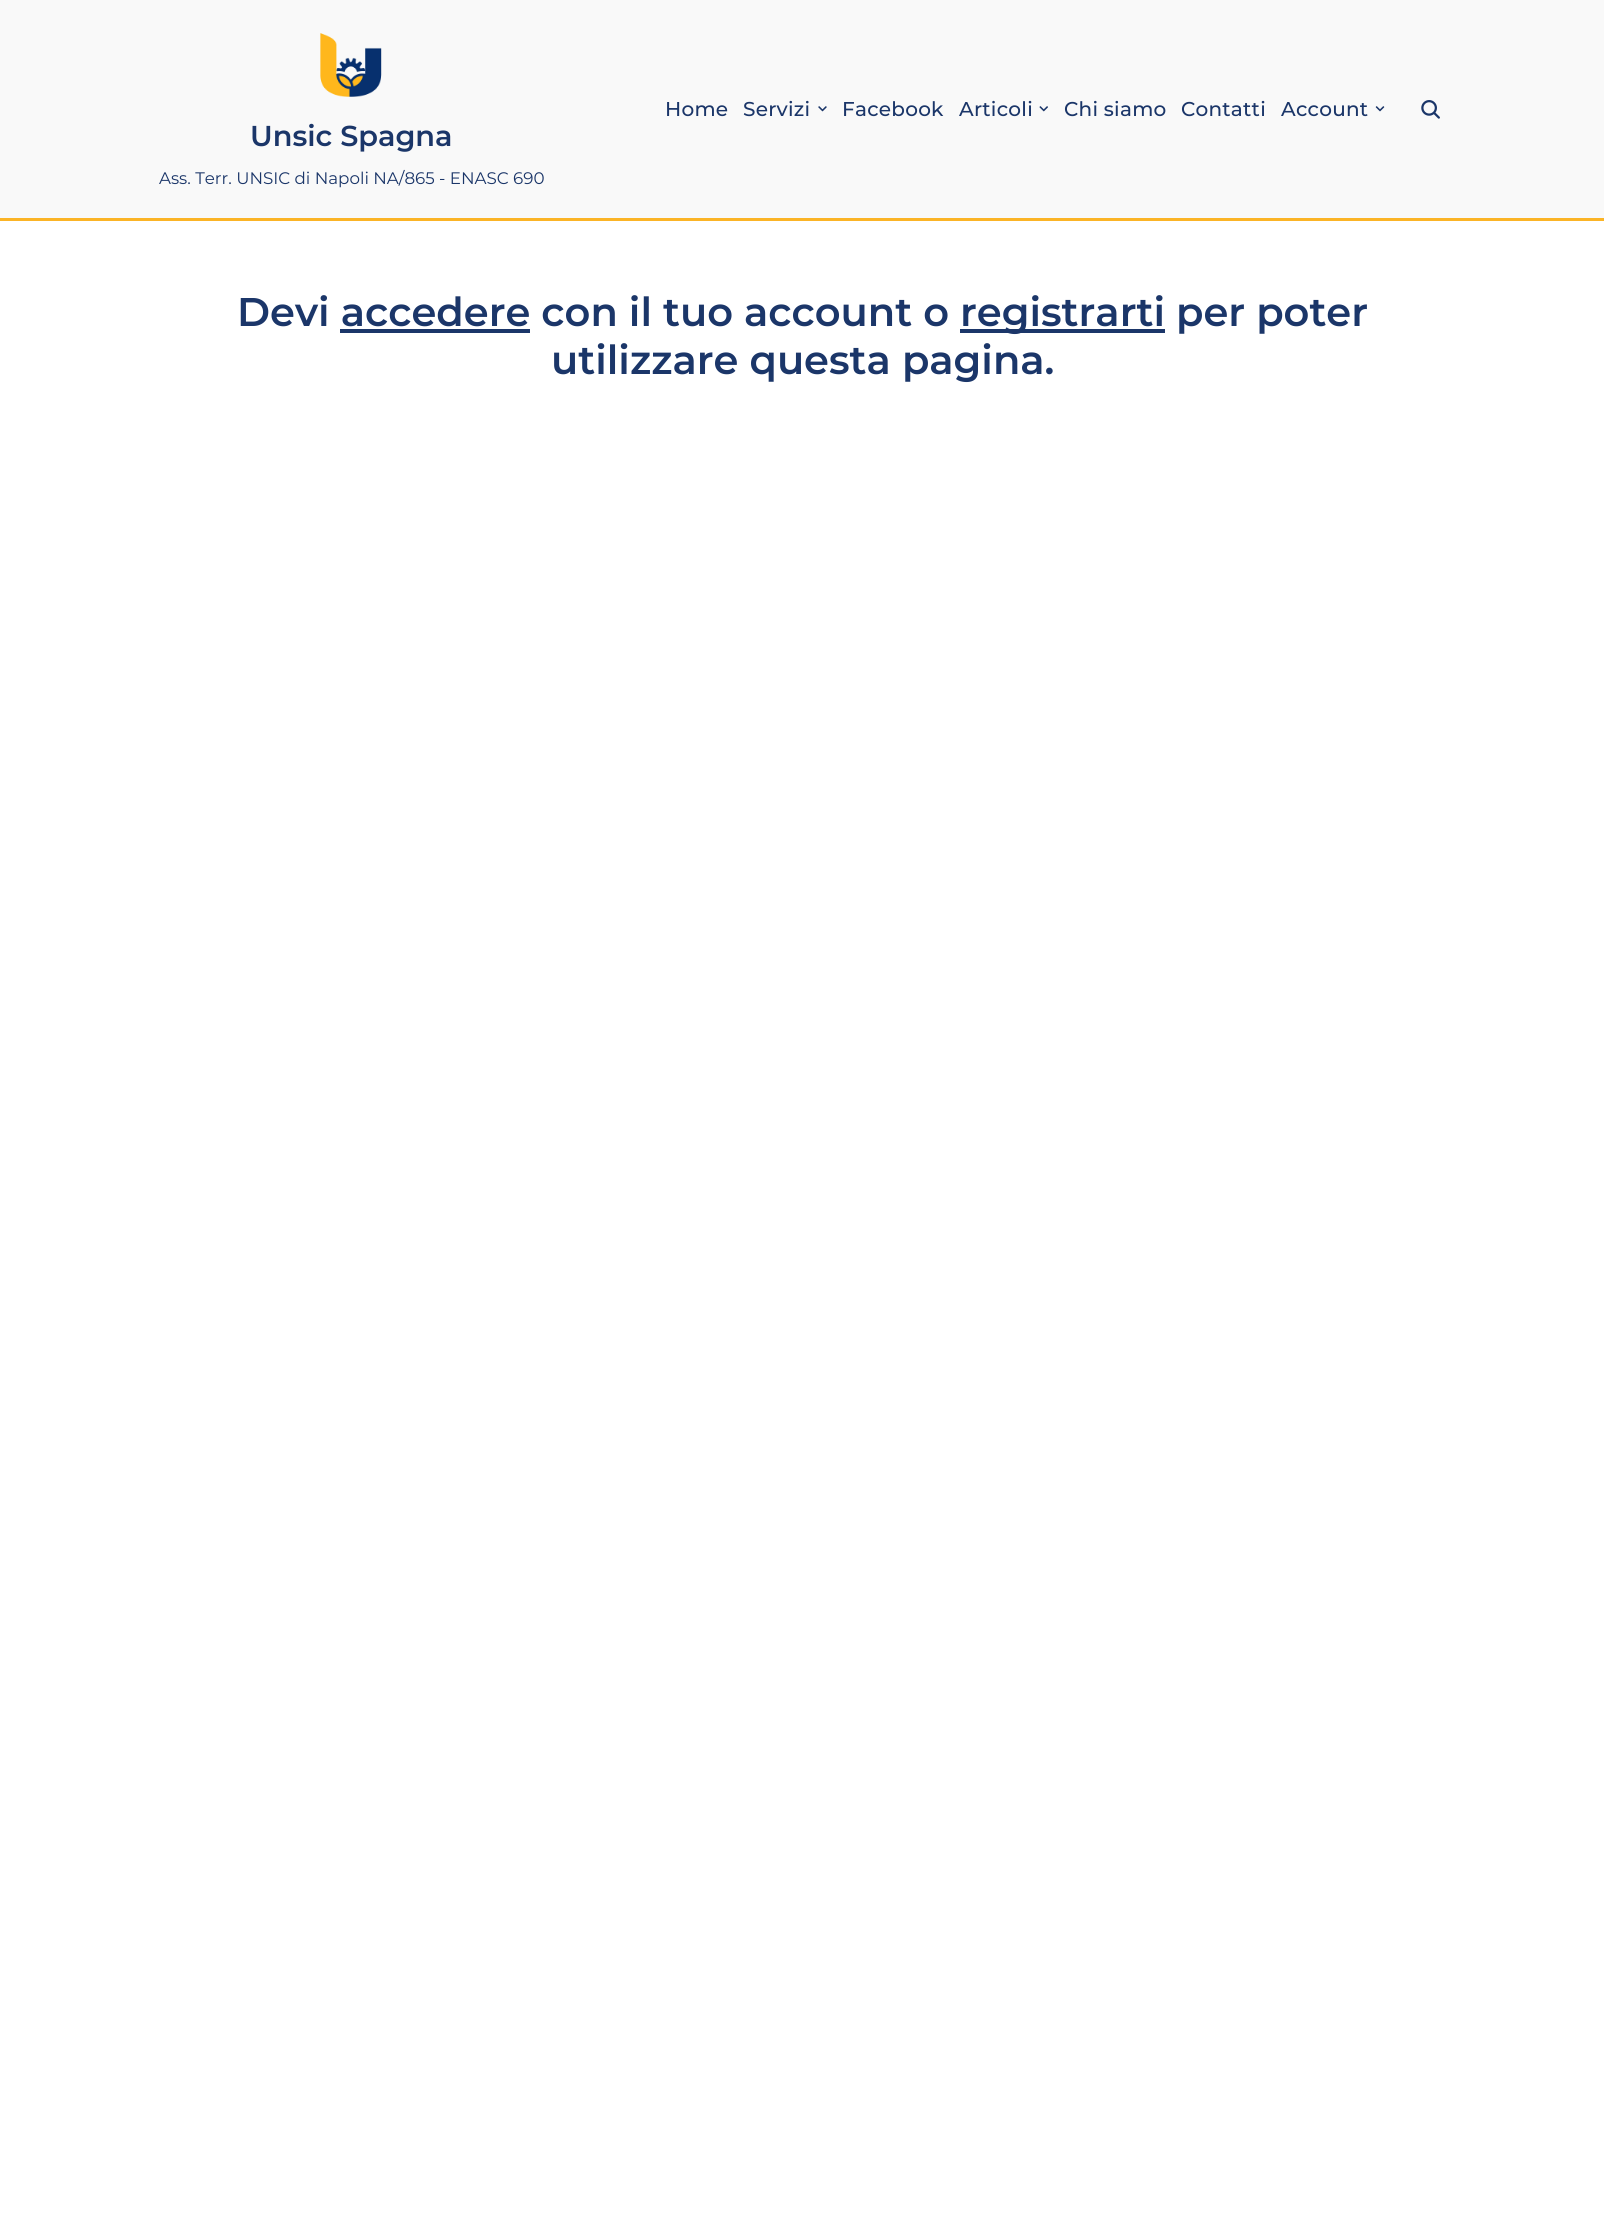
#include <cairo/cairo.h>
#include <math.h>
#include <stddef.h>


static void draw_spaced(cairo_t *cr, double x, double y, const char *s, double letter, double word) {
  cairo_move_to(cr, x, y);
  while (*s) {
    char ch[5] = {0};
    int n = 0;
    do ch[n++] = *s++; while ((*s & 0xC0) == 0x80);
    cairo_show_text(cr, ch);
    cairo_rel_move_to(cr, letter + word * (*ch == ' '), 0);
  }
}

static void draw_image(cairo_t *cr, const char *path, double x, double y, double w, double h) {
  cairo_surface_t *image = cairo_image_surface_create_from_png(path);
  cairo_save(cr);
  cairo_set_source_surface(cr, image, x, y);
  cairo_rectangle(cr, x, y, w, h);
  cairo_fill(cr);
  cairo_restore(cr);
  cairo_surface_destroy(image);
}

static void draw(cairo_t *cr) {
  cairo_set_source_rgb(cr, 1, 1, 1);
  cairo_paint(cr);
  cairo_set_source_rgb(cr, 249 / 255.0, 249 / 255.0, 249 / 255.0);
  cairo_rectangle(cr, 0, 0, 1604, 218);
  cairo_fill(cr);
  cairo_set_source_rgb(cr, 251 / 255.0, 180 / 255.0, 38 / 255.0);
  cairo_rectangle(cr, 0, 218, 1604, 3);
  cairo_fill(cr);
  draw_image(cr, "images/1.png", 818, 106, 9, 6);
  draw_image(cr, "images/2.png", 1039, 106, 9, 6);
  draw_image(cr, "images/3.png", 1375, 106, 10, 6);
  draw_image(cr, "images/4.png", 1421, 100, 19, 19);
  draw_image(cr, "images/5.png", 320, 33, 62, 64);
  cairo_set_source_rgb(cr, 27 / 255.0, 54 / 255.0, 105 / 255.0);
  cairo_rectangle(cr, 960, 329, 205, 4);
  cairo_fill(cr);
  cairo_rectangle(cr, 340, 329, 190, 4);
  cairo_fill(cr);
  cairo_select_font_face(cr, "Montserrat Medium", CAIRO_FONT_SLANT_NORMAL, CAIRO_FONT_WEIGHT_NORMAL);
  cairo_set_font_size(cr, 20);
  draw_spaced(cr, 665, 116, "Home", 0.25, 0);
  draw_spaced(cr, 743, 116, "Servizi", 0.25, 0);
  draw_spaced(cr, 842, 116, "Facebook", 0.25, 0);
  draw_spaced(cr, 959, 116, "Articoli", 0.25, 0);
  draw_spaced(cr, 1064, 116, "Chi siamo", 0.25, 0);
  draw_spaced(cr, 1181, 116, "Contatti", 0.25, 0);
  draw_spaced(cr, 1281, 116, "Account", 0.25, 0);
  cairo_select_font_face(cr, "Montserrat SemiBold", CAIRO_FONT_SLANT_NORMAL, CAIRO_FONT_WEIGHT_NORMAL);
  cairo_set_font_size(cr, 28.75);
  cairo_move_to(cr, 250, 146);
  cairo_show_text(cr, "Unsic Spagna");
  cairo_select_font_face(cr, "Montserrat", CAIRO_FONT_SLANT_NORMAL, CAIRO_FONT_WEIGHT_NORMAL);
  cairo_set_font_size(cr, 16.7);
  cairo_move_to(cr, 159, 184);
  cairo_show_text(cr, "Ass. Terr. UNSIC di Napoli NA/865 - ENASC 690");
  cairo_select_font_face(cr, "Montserrat SemiBold", CAIRO_FONT_SLANT_NORMAL, CAIRO_FONT_WEIGHT_NORMAL);
  cairo_set_font_size(cr, 40);
  cairo_move_to(cr, 237, 326);
  cairo_show_text(cr, "Devi accedere con il tuo account o");
  cairo_move_to(cr, 960, 326);
  cairo_show_text(cr, "registrarti per poter");
  cairo_move_to(cr, 551, 374);
  cairo_show_text(cr, "utilizzare questa pagina.");
}

int main(void) {
  cairo_surface_t *surface = cairo_image_surface_create(CAIRO_FORMAT_RGB24, 1604, 2238);
  cairo_t *cr = cairo_create(surface);
  cairo_font_options_t *options = cairo_font_options_create();
  cairo_font_options_set_hint_metrics(options, CAIRO_HINT_METRICS_OFF);
  cairo_font_options_set_hint_style(options, CAIRO_HINT_STYLE_NONE);
  cairo_set_font_options(cr, options);
  cairo_set_miter_limit(cr, 4);
  draw(cr);
  cairo_surface_write_to_png(surface, "out.png");
  cairo_font_options_destroy(options);
  cairo_destroy(cr);
  cairo_surface_destroy(surface);
  return 0;
}
